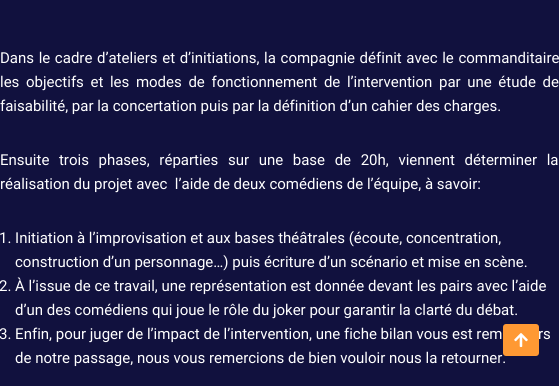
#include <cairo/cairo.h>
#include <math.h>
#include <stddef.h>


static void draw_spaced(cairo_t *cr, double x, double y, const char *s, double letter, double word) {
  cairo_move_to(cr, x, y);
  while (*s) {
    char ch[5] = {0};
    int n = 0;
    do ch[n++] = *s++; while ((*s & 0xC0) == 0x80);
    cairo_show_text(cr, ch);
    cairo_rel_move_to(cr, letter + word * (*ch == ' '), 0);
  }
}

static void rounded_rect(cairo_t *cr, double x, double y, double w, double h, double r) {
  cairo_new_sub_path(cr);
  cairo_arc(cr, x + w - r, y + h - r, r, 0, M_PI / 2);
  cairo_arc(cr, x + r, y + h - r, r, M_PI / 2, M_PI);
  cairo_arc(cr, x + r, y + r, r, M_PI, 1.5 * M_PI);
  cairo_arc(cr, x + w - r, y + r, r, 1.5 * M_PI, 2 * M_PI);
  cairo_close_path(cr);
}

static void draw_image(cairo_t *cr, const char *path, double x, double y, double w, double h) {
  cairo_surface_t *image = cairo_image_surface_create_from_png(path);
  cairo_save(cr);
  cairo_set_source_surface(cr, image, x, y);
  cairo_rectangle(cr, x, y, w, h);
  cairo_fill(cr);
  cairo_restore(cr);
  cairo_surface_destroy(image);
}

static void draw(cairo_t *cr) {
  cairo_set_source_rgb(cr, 17 / 255.0, 17 / 255.0, 62 / 255.0);
  cairo_paint(cr);
  cairo_select_font_face(cr, "Roboto", CAIRO_FONT_SLANT_NORMAL, CAIRO_FONT_WEIGHT_NORMAL);
  cairo_set_font_size(cr, 15);
  cairo_set_source_rgb(cr, 1, 1, 1);
  draw_spaced(cr, 0, 63, "Dans le cadre d’ateliers et d’initiations, la compagnie définit avec le commanditaire", 0, 0.9);
  draw_spaced(cr, 0, 87, "les objectifs et les modes de fonctionnement de l’intervention par une étude de", 0, 2.9);
  cairo_move_to(cr, 0, 111);
  cairo_show_text(cr, "faisabilité, par la concertation puis par la définition d’un cahier des charges.");
  draw_spaced(cr, 0, 165, "Ensuite trois phases, réparties sur une base de 20h, viennent déterminer la", 0, 5.9);
  cairo_move_to(cr, 0, 189);
  cairo_show_text(cr, "réalisation du projet avec  l’aide de deux comédiens de l’équipe, à savoir:");
  cairo_move_to(cr, -1, 243);
  cairo_show_text(cr, "1. Initiation à l’improvisation et aux bases théâtrales (écoute, concentration,");
  cairo_move_to(cr, 15, 267);
  cairo_show_text(cr, "construction d’un personnage…) puis écriture d’un scénario et mise en scène.");
  cairo_move_to(cr, -1, 291);
  cairo_show_text(cr, "2. À l’issue de ce travail, une représentation est donnée devant les pairs avec l’aide");
  cairo_move_to(cr, 15, 315);
  cairo_show_text(cr, "d’un des comédiens qui joue le rôle du joker pour garantir la clarté du débat.");
  cairo_move_to(cr, -1, 339);
  cairo_show_text(cr, "3. Enfin, pour juger de l’impact de l’intervention, une fiche bilan vous est rem");
  cairo_move_to(cr, 538, 339);
  cairo_show_text(cr, "rs");
  cairo_move_to(cr, 15, 363);
  cairo_show_text(cr, "de notre passage, nous vous remercions de bien vouloir nous la retourner.");
  cairo_set_source_rgb(cr, 1, 153 / 255.0, 51 / 255.0);
  rounded_rect(cr, 503, 324, 36, 32, 3);
  cairo_fill(cr);
  draw_image(cr, "images/1.png", 514, 333, 14, 14);
}

int main(void) {
  cairo_surface_t *surface = cairo_image_surface_create(CAIRO_FORMAT_RGB24, 559, 386);
  cairo_t *cr = cairo_create(surface);
  cairo_font_options_t *options = cairo_font_options_create();
  cairo_font_options_set_hint_metrics(options, CAIRO_HINT_METRICS_OFF);
  cairo_font_options_set_hint_style(options, CAIRO_HINT_STYLE_NONE);
  cairo_set_font_options(cr, options);
  cairo_set_miter_limit(cr, 4);
  draw(cr);
  cairo_surface_write_to_png(surface, "out.png");
  cairo_font_options_destroy(options);
  cairo_destroy(cr);
  cairo_surface_destroy(surface);
  return 0;
}
